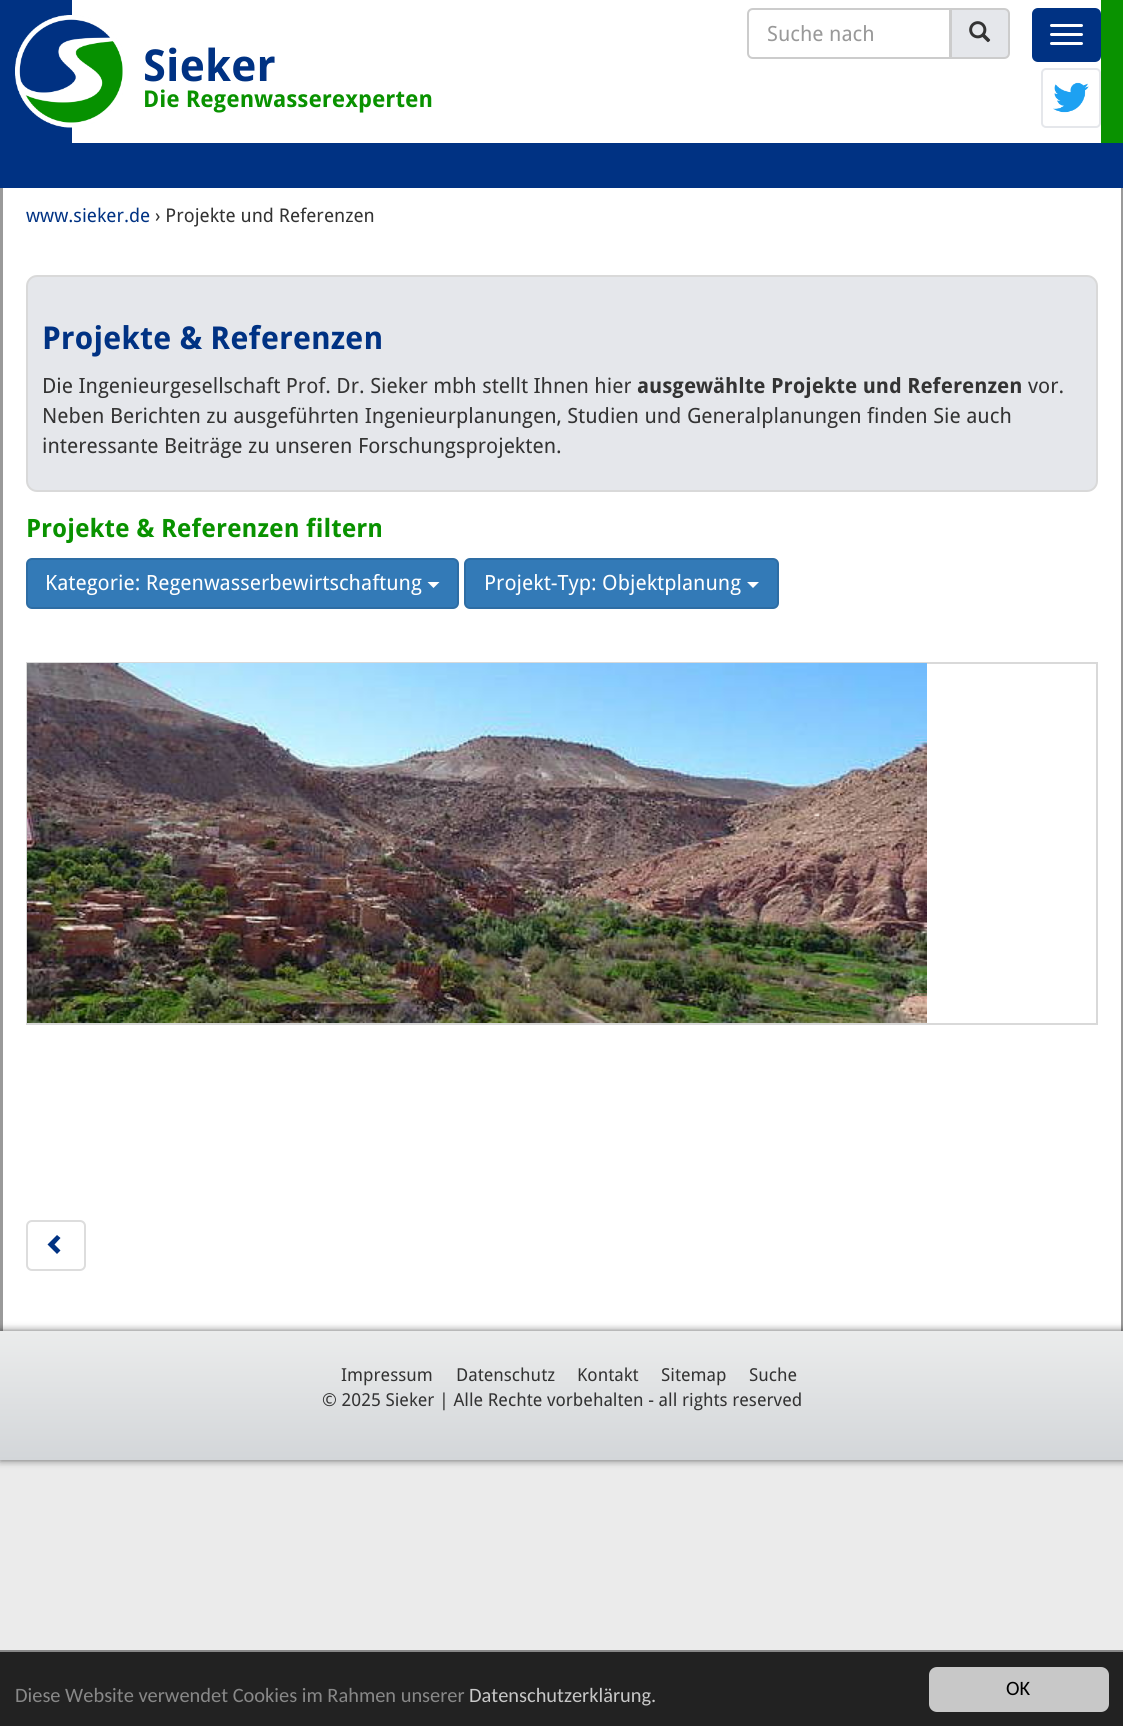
#include <cairo/cairo.h>
#include <math.h>
#include <stddef.h>


static void rounded_rect(cairo_t *cr, double x, double y, double w, double h, double r) {
  cairo_new_sub_path(cr);
  cairo_arc(cr, x + w - r, y + h - r, r, 0, M_PI / 2);
  cairo_arc(cr, x + r, y + h - r, r, M_PI / 2, M_PI);
  cairo_arc(cr, x + r, y + r, r, M_PI, 1.5 * M_PI);
  cairo_arc(cr, x + w - r, y + r, r, 1.5 * M_PI, 2 * M_PI);
  cairo_close_path(cr);
}

static void draw_shadow(cairo_t *cr, double x, double y, double w, double h, double r, double blur, double alpha) {
  cairo_push_group_with_content(cr, CAIRO_CONTENT_ALPHA);
  cairo_set_operator(cr, CAIRO_OPERATOR_SOURCE);
  for (int i = 15; i >= -15 && fmin(w, h) + blur * i / 3 > 0; i -= 2) {
    double e = blur * i / 6;
    cairo_set_source_rgba(cr, 0, 0, 0, alpha * erfc((i - 1) / 8.5) / 2);
    rounded_rect(cr, x - e, y - e, w + 2 * e, h + 2 * e, fmax(0, fmin(r + e + blur * .6, fmin(w, h) / 2 + e)));
    cairo_fill(cr);
  }
  cairo_pattern_t *soft = cairo_pop_group(cr);
  cairo_mask(cr, soft);
  cairo_pattern_destroy(soft);
}

static void draw_image(cairo_t *cr, const char *path, double x, double y, double w, double h) {
  cairo_surface_t *image = cairo_image_surface_create_from_png(path);
  cairo_save(cr);
  cairo_set_source_surface(cr, image, x, y);
  cairo_rectangle(cr, x, y, w, h);
  cairo_fill(cr);
  cairo_restore(cr);
  cairo_surface_destroy(image);
}

static void draw(cairo_t *cr) {
  cairo_pattern_t *gradient;
  cairo_set_source_rgb(cr, 235 / 255.0, 235 / 255.0, 235 / 255.0);
  cairo_paint(cr);
  cairo_set_source_rgb(cr, 0, 50 / 255.0, 131 / 255.0);
  cairo_rectangle(cr, 0, 0, 72, 143);
  cairo_fill(cr);
  cairo_set_source_rgb(cr, 1, 1, 1);
  cairo_rectangle(cr, 72, 0, 1029, 143);
  cairo_fill(cr);
  cairo_set_source_rgb(cr, 9 / 255.0, 146 / 255.0, 0);
  cairo_rectangle(cr, 1101, 0, 22, 143);
  cairo_fill(cr);
  draw_image(cr, "images/1.png", 15, 15, 108, 113);
  cairo_new_path(cr);
  cairo_move_to(cr, 753, 9);
  cairo_line_to(cr, 950, 9);
  cairo_line_to(cr, 950, 58);
  cairo_line_to(cr, 753, 58);
  cairo_curve_to(cr, 750, 58, 748, 56, 748, 53);
  cairo_line_to(cr, 748, 14);
  cairo_curve_to(cr, 748, 11, 750, 9, 753, 9);
  cairo_close_path(cr);
  cairo_set_source_rgb(cr, 204 / 255.0, 204 / 255.0, 204 / 255.0);
  cairo_stroke(cr);
  cairo_set_source_rgb(cr, 229 / 255.0, 231 / 255.0, 235 / 255.0);
  cairo_new_path(cr);
  cairo_move_to(cr, 951, 9);
  cairo_line_to(cr, 1004, 9);
  cairo_curve_to(cr, 1007, 9, 1009, 11, 1009, 14);
  cairo_line_to(cr, 1009, 53);
  cairo_curve_to(cr, 1009, 56, 1007, 58, 1004, 58);
  cairo_line_to(cr, 951, 58);
  cairo_close_path(cr);
  cairo_fill_preserve(cr);
  cairo_set_source_rgb(cr, 204 / 255.0, 204 / 255.0, 204 / 255.0);
  cairo_stroke(cr);
  draw_image(cr, "images/2.png", 969, 21, 22, 22);
  cairo_set_source_rgb(cr, 0, 50 / 255.0, 131 / 255.0);
  rounded_rect(cr, 1033.5, 9.5, 66, 51, 4.5);
  cairo_fill_preserve(cr);
  cairo_set_line_width(cr, 3);
  cairo_stroke(cr);
  cairo_set_source_rgb(cr, 1, 1, 1);
  rounded_rect(cr, 1050, 24, 33, 3, 1.5);
  cairo_fill(cr);
  rounded_rect(cr, 1050, 33, 33, 3, 1.5);
  cairo_fill(cr);
  rounded_rect(cr, 1050, 42, 33, 3, 1.5);
  cairo_fill(cr);
  rounded_rect(cr, 1042, 69, 58, 58, 4);
  cairo_set_source_rgb(cr, 229 / 255.0, 231 / 255.0, 235 / 255.0);
  cairo_set_line_width(cr, 2);
  cairo_stroke(cr);
  draw_image(cr, "images/3.png", 1053, 82, 36, 31);
  cairo_set_source_rgb(cr, 0, 50 / 255.0, 131 / 255.0);
  cairo_rectangle(cr, 0, 143, 1123, 45);
  cairo_fill(cr);
  cairo_set_source_rgb(cr, 1, 1, 1);
  cairo_rectangle(cr, 3, 188, 1118, 1143);
  cairo_fill(cr);
  cairo_set_source_rgb(cr, 154 / 255.0, 154 / 255.0, 154 / 255.0);
  cairo_rectangle(cr, 1121, 188, 2, 1143);
  cairo_fill(cr);
  cairo_rectangle(cr, 0, 188, 3, 1143);
  cairo_fill(cr);
  cairo_set_source_rgb(cr, 229 / 255.0, 231 / 255.0, 235 / 255.0);
  rounded_rect(cr, 27, 276, 1070, 215, 10);
  cairo_fill_preserve(cr);
  cairo_set_source_rgb(cr, 217 / 255.0, 217 / 255.0, 217 / 255.0);
  cairo_stroke(cr);
  cairo_set_source_rgb(cr, 51 / 255.0, 122 / 255.0, 183 / 255.0);
  rounded_rect(cr, 27, 559, 431, 49, 5);
  cairo_fill_preserve(cr);
  cairo_set_source_rgb(cr, 46 / 255.0, 109 / 255.0, 164 / 255.0);
  cairo_stroke(cr);
  cairo_set_source_rgb(cr, 1, 1, 1);
  cairo_new_path(cr);
  cairo_move_to(cr, 427.5, 582);
  cairo_line_to(cr, 439.5, 582);
  cairo_line_to(cr, 433.5, 588);
  cairo_close_path(cr);
  cairo_fill(cr);
  cairo_set_source_rgb(cr, 51 / 255.0, 122 / 255.0, 183 / 255.0);
  rounded_rect(cr, 465, 559, 313, 49, 5);
  cairo_fill_preserve(cr);
  cairo_set_source_rgb(cr, 46 / 255.0, 109 / 255.0, 164 / 255.0);
  cairo_stroke(cr);
  cairo_set_source_rgb(cr, 1, 1, 1);
  cairo_new_path(cr);
  cairo_move_to(cr, 747, 582);
  cairo_line_to(cr, 759, 582);
  cairo_line_to(cr, 753, 588);
  cairo_close_path(cr);
  cairo_fill(cr);
  cairo_rectangle(cr, 27, 663, 1070, 361);
  cairo_set_source_rgb(cr, 217 / 255.0, 217 / 255.0, 217 / 255.0);
  cairo_stroke(cr);
  draw_image(cr, "images/4.png", 27, 663, 900, 360);
  rounded_rect(cr, 27, 1221, 58, 49, 5);
  cairo_set_source_rgb(cr, 221 / 255.0, 221 / 255.0, 221 / 255.0);
  cairo_stroke(cr);
  cairo_set_source_rgb(cr, 0, 50 / 255.0, 131 / 255.0);
  cairo_new_path(cr);
  cairo_move_to(cr, 60.5, 1238);
  cairo_line_to(cr, 54.5, 1244.5);
  cairo_line_to(cr, 60.5, 1250.5);
  cairo_line_to(cr, 57, 1254);
  cairo_line_to(cr, 47.5, 1244.5);
  cairo_line_to(cr, 57, 1235);
  cairo_close_path(cr);
  cairo_fill(cr);
  cairo_set_source_rgb(cr, 0, 0, 0);
  draw_shadow(cr, 0, 1331, 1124, 129, 0, 4, 0.6);
  gradient = cairo_pattern_create_linear(562, 1460, 562, 1331);
  cairo_pattern_add_color_stop_rgba(gradient, 0, 211 / 255.0, 214 / 255.0, 217 / 255.0, 1);
  cairo_pattern_add_color_stop_rgba(gradient, 1, 235 / 255.0, 236 / 255.0, 236 / 255.0, 1);
  cairo_set_source(cr, gradient);
  cairo_pattern_destroy(gradient);
  cairo_rectangle(cr, 0, 1331, 1123, 129);
  cairo_fill(cr);
  cairo_set_source_rgb(cr, 34 / 255.0, 34 / 255.0, 34 / 255.0);
  cairo_rectangle(cr, 0, 1652, 1123, 74);
  cairo_fill(cr);
  cairo_set_source_rgb(cr, 136 / 255.0, 136 / 255.0, 136 / 255.0);
  cairo_rectangle(cr, 0, 1650, 1123, 2);
  cairo_fill(cr);
  cairo_set_source_rgb(cr, 200 / 255.0, 200 / 255.0, 200 / 255.0);
  rounded_rect(cr, 929, 1667, 180, 45, 8);
  cairo_fill(cr);
  cairo_select_font_face(cr, "Droid Sans", CAIRO_FONT_SLANT_NORMAL, CAIRO_FONT_WEIGHT_NORMAL);
  cairo_set_font_size(cr, 21);
  cairo_set_source_rgb(cr, 153 / 255.0, 153 / 255.0, 153 / 255.0);
  cairo_move_to(cr, 767, 41);
  cairo_show_text(cr, "Suche nach");
  cairo_select_font_face(cr, "Droid Sans", CAIRO_FONT_SLANT_NORMAL, CAIRO_FONT_WEIGHT_BOLD);
  cairo_set_font_size(cr, 44);
  cairo_set_source_rgb(cr, 0, 50 / 255.0, 131 / 255.0);
  cairo_move_to(cr, 143, 81);
  cairo_show_text(cr, "Sieker");
  cairo_set_font_size(cr, 23.1);
  cairo_set_source_rgb(cr, 9 / 255.0, 146 / 255.0, 0);
  cairo_move_to(cr, 143, 107);
  cairo_show_text(cr, "Die Regenwasserexperten");
  cairo_select_font_face(cr, "Droid Sans", CAIRO_FONT_SLANT_NORMAL, CAIRO_FONT_WEIGHT_NORMAL);
  cairo_set_font_size(cr, 18.9);
  cairo_set_source_rgb(cr, 0, 50 / 255.0, 131 / 255.0);
  cairo_move_to(cr, 26, 222);
  cairo_show_text(cr, "www.sieker.de");
  cairo_set_source_rgb(cr, 51 / 255.0, 51 / 255.0, 51 / 255.0);
  cairo_move_to(cr, 155, 222);
  cairo_show_text(cr, "› Projekte und Referenzen");
  cairo_select_font_face(cr, "Droid Sans", CAIRO_FONT_SLANT_NORMAL, CAIRO_FONT_WEIGHT_BOLD);
  cairo_set_font_size(cr, 31.5);
  cairo_set_source_rgb(cr, 0, 50 / 255.0, 131 / 255.0);
  cairo_move_to(cr, 42, 349);
  cairo_show_text(cr, "Projekte & Referenzen");
  cairo_select_font_face(cr, "Droid Sans", CAIRO_FONT_SLANT_NORMAL, CAIRO_FONT_WEIGHT_NORMAL);
  cairo_set_font_size(cr, 21);
  cairo_set_source_rgb(cr, 51 / 255.0, 51 / 255.0, 51 / 255.0);
  cairo_move_to(cr, 42, 393);
  cairo_show_text(cr, "Die Ingenieurgesellschaft Prof. Dr. Sieker mbh stellt Ihnen hier");
  cairo_select_font_face(cr, "Droid Sans", CAIRO_FONT_SLANT_NORMAL, CAIRO_FONT_WEIGHT_BOLD);
  cairo_move_to(cr, 637, 393);
  cairo_show_text(cr, "ausgewählte Projekte und Referenzen");
  cairo_select_font_face(cr, "Droid Sans", CAIRO_FONT_SLANT_NORMAL, CAIRO_FONT_WEIGHT_NORMAL);
  cairo_move_to(cr, 1028, 393);
  cairo_show_text(cr, "vor.");
  cairo_move_to(cr, 42, 423);
  cairo_show_text(cr, "Neben Berichten zu ausgeführten Ingenieurplanungen, Studien und Generalplanungen finden Sie auch");
  cairo_move_to(cr, 42, 453);
  cairo_show_text(cr, "interessante Beiträge zu unseren Forschungsprojekten.");
  cairo_select_font_face(cr, "Droid Sans", CAIRO_FONT_SLANT_NORMAL, CAIRO_FONT_WEIGHT_BOLD);
  cairo_set_font_size(cr, 25.25);
  cairo_set_source_rgb(cr, 9 / 255.0, 146 / 255.0, 0);
  cairo_move_to(cr, 26, 537);
  cairo_show_text(cr, "Projekte & Referenzen filtern");
  cairo_select_font_face(cr, "Droid Sans", CAIRO_FONT_SLANT_NORMAL, CAIRO_FONT_WEIGHT_NORMAL);
  cairo_set_font_size(cr, 21);
  cairo_set_source_rgb(cr, 1, 1, 1);
  cairo_move_to(cr, 45, 590);
  cairo_show_text(cr, "Kategorie: Regenwasserbewirtschaftung");
  cairo_move_to(cr, 484, 590);
  cairo_show_text(cr, "Projekt-Typ: Objektplanung");
  cairo_set_font_size(cr, 17.85);
  cairo_set_source_rgb(cr, 51 / 255.0, 51 / 255.0, 51 / 255.0);
  cairo_move_to(cr, 341, 1381);
  cairo_show_text(cr, "Impressum");
  cairo_move_to(cr, 456, 1381);
  cairo_show_text(cr, "Datenschutz");
  cairo_move_to(cr, 577, 1381);
  cairo_show_text(cr, "Kontakt");
  cairo_move_to(cr, 661, 1381);
  cairo_show_text(cr, "Sitemap");
  cairo_move_to(cr, 749, 1381);
  cairo_show_text(cr, "Suche");
  cairo_move_to(cr, 322, 1406);
  cairo_show_text(cr, "© 2025 Sieker | Alle Rechte vorbehalten - all rights reserved");
  cairo_select_font_face(cr, "Carlito", CAIRO_FONT_SLANT_NORMAL, CAIRO_FONT_WEIGHT_NORMAL);
  cairo_set_font_size(cr, 20.4);
  cairo_set_source_rgb(cr, 136 / 255.0, 136 / 255.0, 136 / 255.0);
  cairo_move_to(cr, 15, 1702);
  cairo_show_text(cr, "Diese Website verwendet Cookies im Rahmen unserer");
  cairo_set_source_rgb(cr, 200 / 255.0, 200 / 255.0, 200 / 255.0);
  cairo_move_to(cr, 469, 1702);
  cairo_show_text(cr, "Datenschutzerklärung.");
  cairo_set_source_rgb(cr, 0, 0, 0);
  cairo_move_to(cr, 1006, 1695);
  cairo_show_text(cr, "OK");
}

int main(void) {
  cairo_surface_t *surface = cairo_image_surface_create(CAIRO_FORMAT_RGB24, 1123, 1726);
  cairo_t *cr = cairo_create(surface);
  cairo_font_options_t *options = cairo_font_options_create();
  cairo_font_options_set_hint_metrics(options, CAIRO_HINT_METRICS_OFF);
  cairo_font_options_set_hint_style(options, CAIRO_HINT_STYLE_NONE);
  cairo_set_font_options(cr, options);
  cairo_set_miter_limit(cr, 4);
  draw(cr);
  cairo_surface_write_to_png(surface, "out.png");
  cairo_font_options_destroy(options);
  cairo_destroy(cr);
  cairo_surface_destroy(surface);
  return 0;
}
